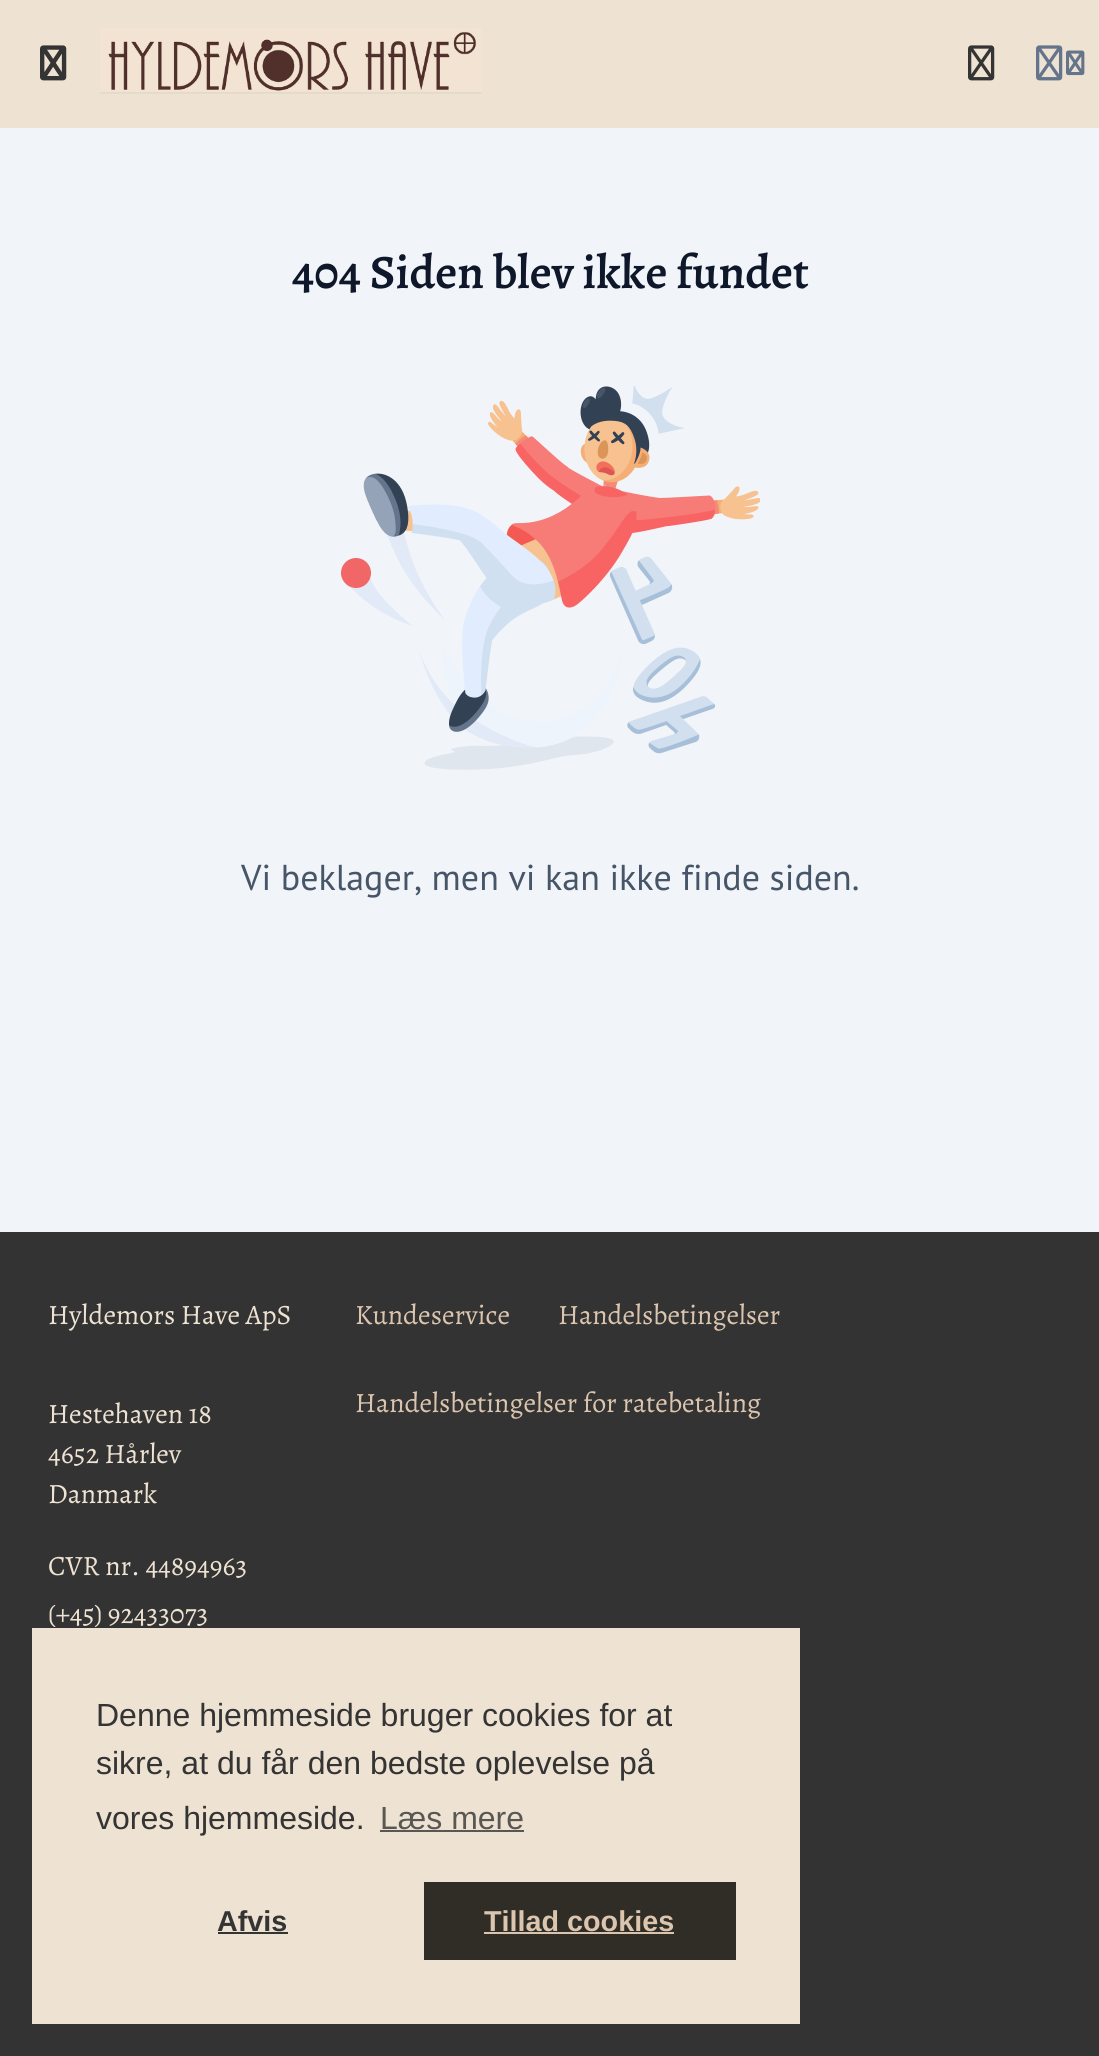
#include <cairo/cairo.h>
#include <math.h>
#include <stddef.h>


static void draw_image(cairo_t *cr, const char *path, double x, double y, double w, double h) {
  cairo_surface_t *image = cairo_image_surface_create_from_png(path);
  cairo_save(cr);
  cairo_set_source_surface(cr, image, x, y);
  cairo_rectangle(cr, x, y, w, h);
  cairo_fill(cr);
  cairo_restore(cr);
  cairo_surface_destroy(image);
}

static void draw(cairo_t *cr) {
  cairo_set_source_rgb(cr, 241 / 255.0, 245 / 255.0, 249 / 255.0);
  cairo_paint(cr);
  cairo_set_source_rgb(cr, 238 / 255.0, 226 / 255.0, 210 / 255.0);
  cairo_rectangle(cr, 0, 0, 1099, 128);
  cairo_fill(cr);
  draw_image(cr, "images/1.png", 40, 45, 27, 36);
  draw_image(cr, "images/2.png", 100, 28, 382, 66);
  draw_image(cr, "images/3.png", 968, 45, 27, 36);
  draw_image(cr, "images/4.png", 1036, 45, 27, 36);
  draw_image(cr, "images/5.png", 1066, 50, 19, 26);
  draw_image(cr, "images/6.png", 341, 385, 419, 385);
  cairo_set_source_rgb(cr, 51 / 255.0, 51 / 255.0, 51 / 255.0);
  cairo_rectangle(cr, 0, 1232, 1099, 824);
  cairo_fill(cr);
  cairo_set_source_rgb(cr, 238 / 255.0, 226 / 255.0, 210 / 255.0);
  cairo_rectangle(cr, 32, 1628, 768, 396);
  cairo_fill(cr);
  cairo_set_source_rgb(cr, 89 / 255.0, 87 / 255.0, 84 / 255.0);
  cairo_rectangle(cr, 380, 1830, 144, 2);
  cairo_fill(cr);
  cairo_set_source_rgb(cr, 52 / 255.0, 52 / 255.0, 52 / 255.0);
  cairo_rectangle(cr, 218, 1932, 70, 2);
  cairo_fill(cr);
  cairo_set_source_rgb(cr, 47 / 255.0, 45 / 255.0, 38 / 255.0);
  cairo_rectangle(cr, 424, 1882, 312, 78);
  cairo_fill(cr);
  cairo_set_source_rgb(cr, 219 / 255.0, 197 / 255.0, 174 / 255.0);
  cairo_rectangle(cr, 484, 1932, 190, 2);
  cairo_fill(cr);
  cairo_select_font_face(cr, "Alegreya SemiBold", CAIRO_FONT_SLANT_NORMAL, CAIRO_FONT_WEIGHT_NORMAL);
  cairo_set_font_size(cr, 48);
  cairo_set_source_rgb(cr, 15 / 255.0, 23 / 255.0, 42 / 255.0);
  cairo_move_to(cr, 292, 288);
  cairo_show_text(cr, "404 Siden blev ikke fundet");
  cairo_select_font_face(cr, "PT Sans", CAIRO_FONT_SLANT_NORMAL, CAIRO_FONT_WEIGHT_NORMAL);
  cairo_set_font_size(cr, 36);
  cairo_set_source_rgb(cr, 71 / 255.0, 85 / 255.0, 105 / 255.0);
  cairo_move_to(cr, 241, 890);
  cairo_show_text(cr, "Vi beklager, men vi kan ikke finde siden.");
  cairo_select_font_face(cr, "Alegreya", CAIRO_FONT_SLANT_NORMAL, CAIRO_FONT_WEIGHT_NORMAL);
  cairo_set_font_size(cr, 28);
  cairo_set_source_rgb(cr, 238 / 255.0, 226 / 255.0, 210 / 255.0);
  cairo_move_to(cr, 48, 1324);
  cairo_show_text(cr, "Hyldemors Have ApS");
  cairo_move_to(cr, 48, 1423);
  cairo_show_text(cr, "Hestehaven 18");
  cairo_move_to(cr, 48, 1463);
  cairo_show_text(cr, "4652 Hårlev");
  cairo_move_to(cr, 48, 1503);
  cairo_show_text(cr, "Danmark");
  cairo_move_to(cr, 48, 1575);
  cairo_show_text(cr, "CVR nr. 44894963");
  cairo_move_to(cr, 48, 1623);
  cairo_show_text(cr, "(+45) 92433073");
  cairo_set_source_rgb(cr, 219 / 255.0, 197 / 255.0, 174 / 255.0);
  cairo_move_to(cr, 355, 1324);
  cairo_show_text(cr, "Kundeservice");
  cairo_move_to(cr, 558, 1324);
  cairo_show_text(cr, "Handelsbetingelser");
  cairo_move_to(cr, 355, 1412);
  cairo_show_text(cr, "Handelsbetingelser for ratebetaling");
  cairo_select_font_face(cr, "Liberation Sans", CAIRO_FONT_SLANT_NORMAL, CAIRO_FONT_WEIGHT_NORMAL);
  cairo_set_font_size(cr, 32);
  cairo_set_source_rgb(cr, 52 / 255.0, 52 / 255.0, 52 / 255.0);
  cairo_move_to(cr, 96, 1726);
  cairo_show_text(cr, "Denne hjemmeside bruger cookies for at");
  cairo_move_to(cr, 96, 1774);
  cairo_show_text(cr, "sikre, at du får den bedste oplevelse på");
  cairo_move_to(cr, 96, 1829);
  cairo_show_text(cr, "vores hjemmeside.");
  cairo_set_source_rgb(cr, 89 / 255.0, 87 / 255.0, 84 / 255.0);
  cairo_move_to(cr, 380, 1829);
  cairo_show_text(cr, "Læs mere");
  cairo_select_font_face(cr, "Liberation Sans", CAIRO_FONT_SLANT_NORMAL, CAIRO_FONT_WEIGHT_BOLD);
  cairo_set_font_size(cr, 28.75);
  cairo_set_source_rgb(cr, 52 / 255.0, 52 / 255.0, 52 / 255.0);
  cairo_move_to(cr, 217, 1931);
  cairo_show_text(cr, "Afvis");
  cairo_set_source_rgb(cr, 219 / 255.0, 197 / 255.0, 174 / 255.0);
  cairo_move_to(cr, 484, 1931);
  cairo_show_text(cr, "Tillad cookies");
}

int main(void) {
  cairo_surface_t *surface = cairo_image_surface_create(CAIRO_FORMAT_RGB24, 1099, 2056);
  cairo_t *cr = cairo_create(surface);
  cairo_font_options_t *options = cairo_font_options_create();
  cairo_font_options_set_hint_metrics(options, CAIRO_HINT_METRICS_OFF);
  cairo_font_options_set_hint_style(options, CAIRO_HINT_STYLE_NONE);
  cairo_set_font_options(cr, options);
  cairo_set_miter_limit(cr, 4);
  draw(cr);
  cairo_surface_write_to_png(surface, "out.png");
  cairo_font_options_destroy(options);
  cairo_destroy(cr);
  cairo_surface_destroy(surface);
  return 0;
}
